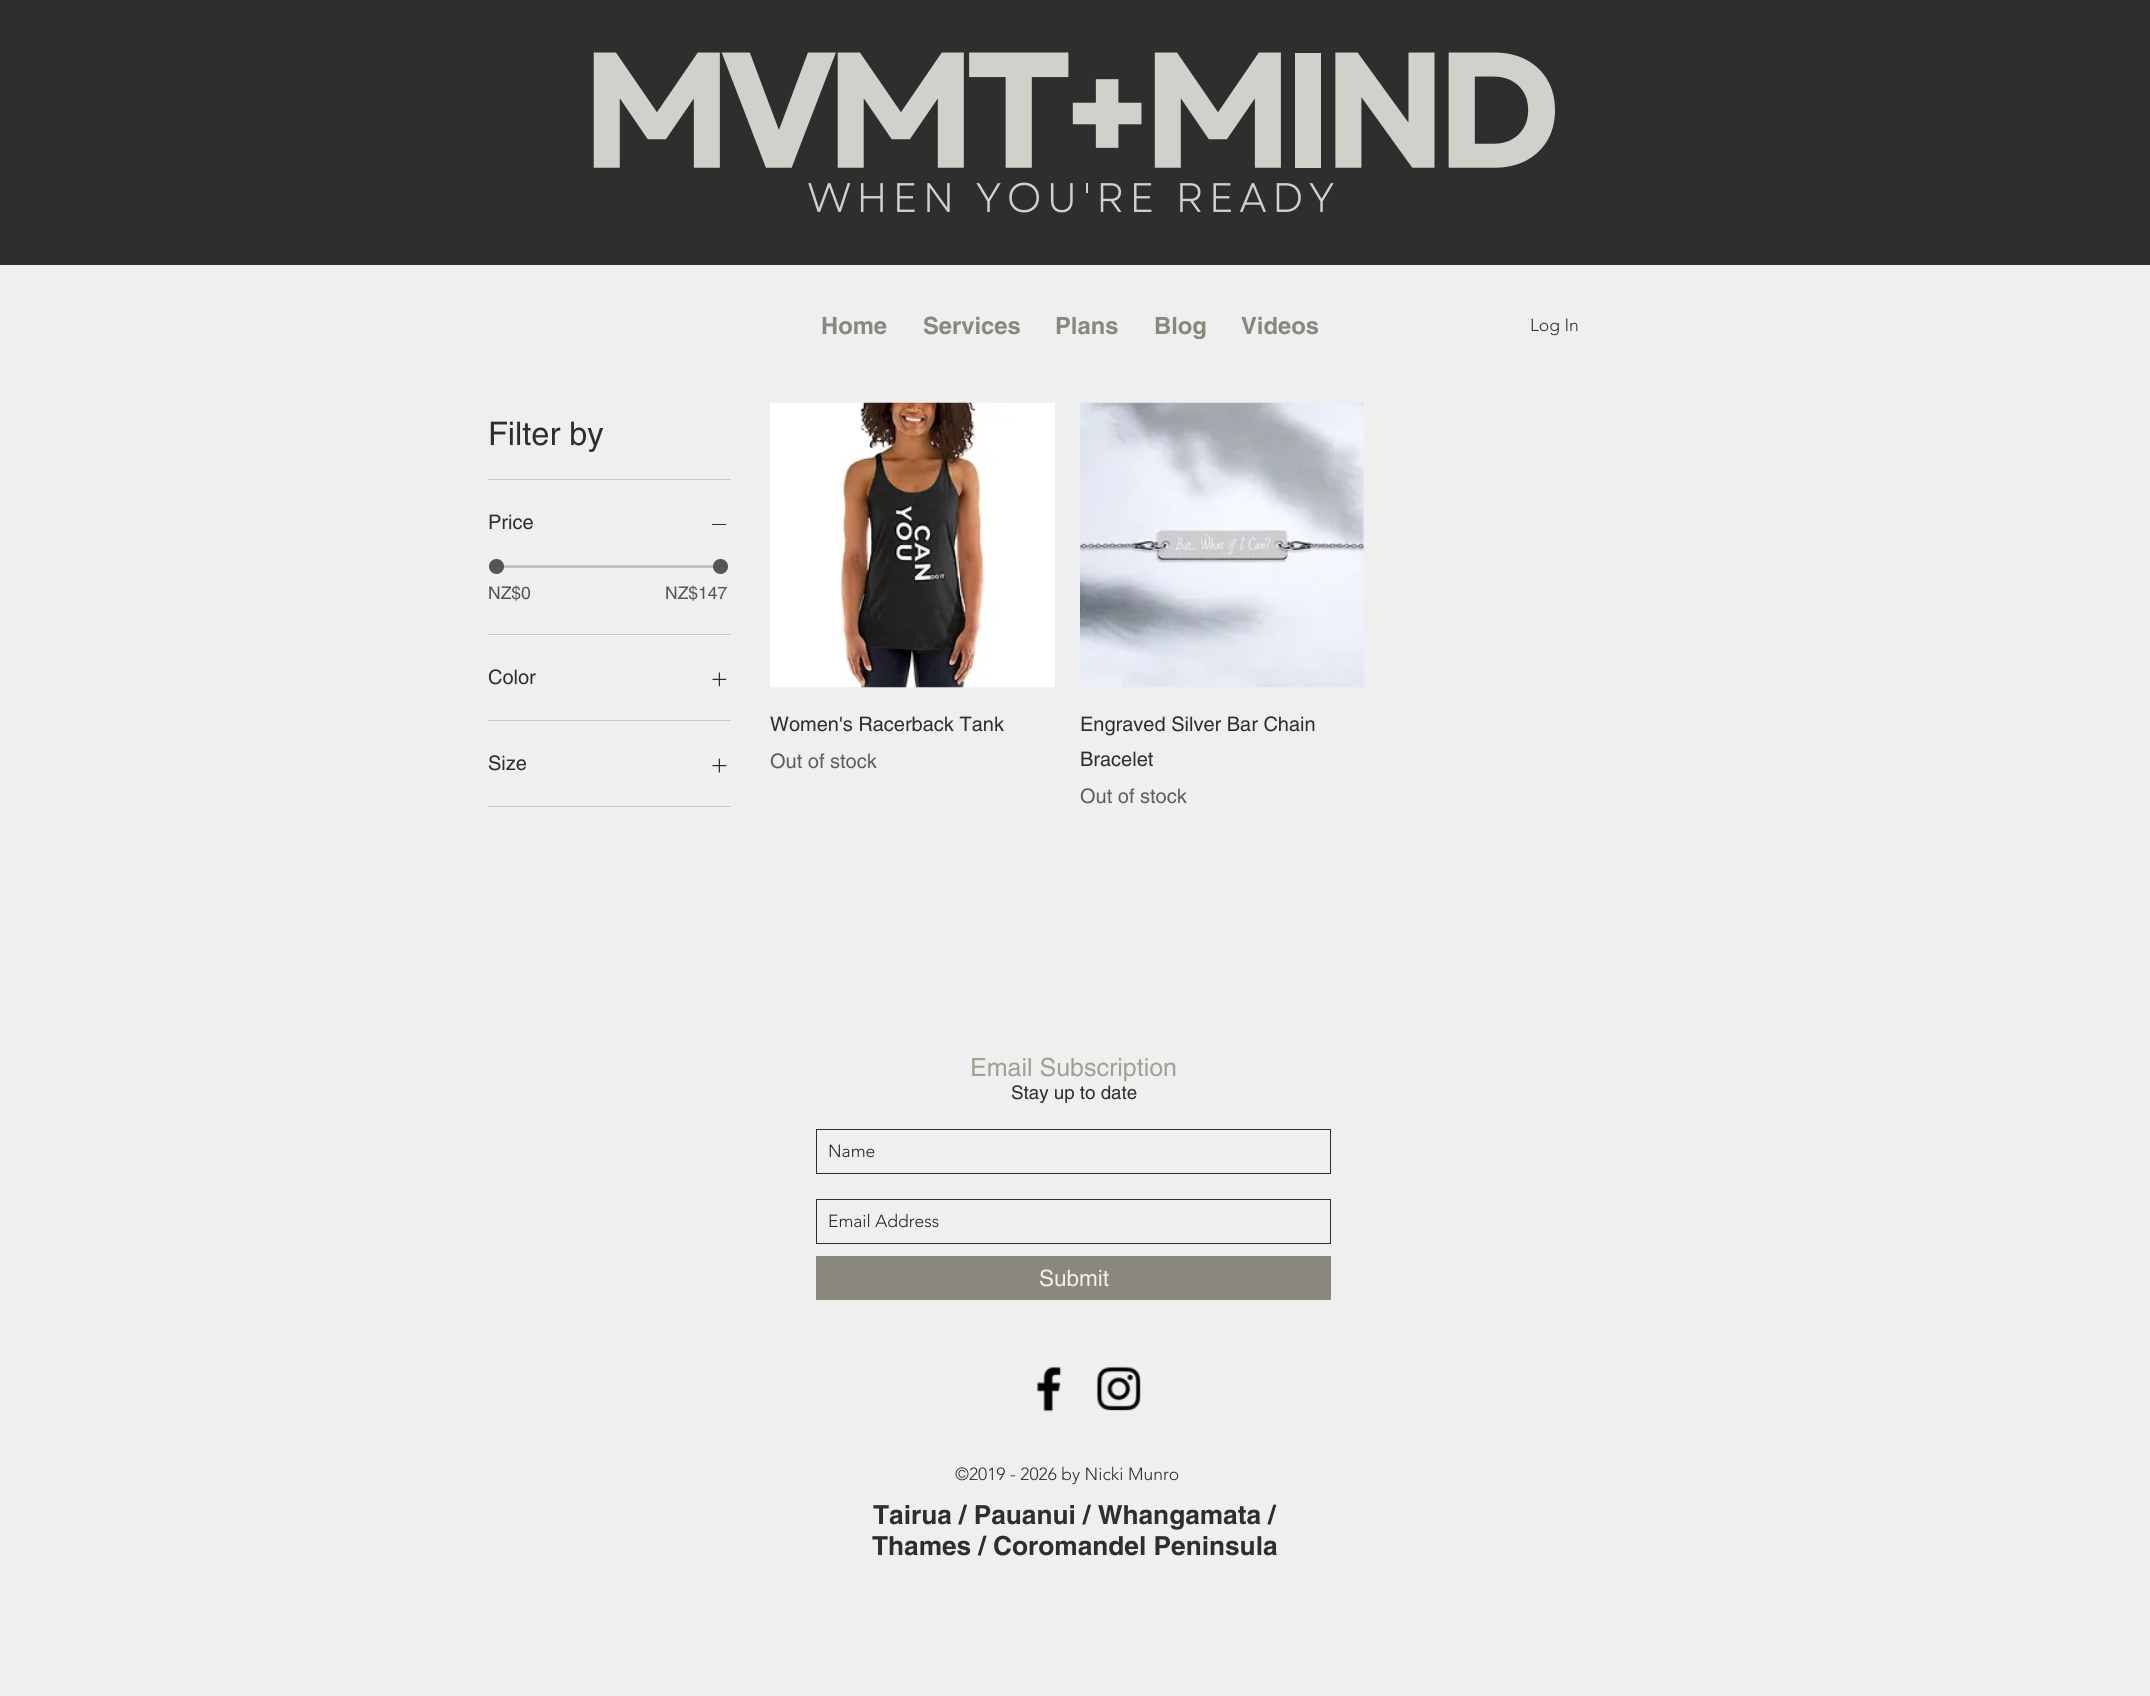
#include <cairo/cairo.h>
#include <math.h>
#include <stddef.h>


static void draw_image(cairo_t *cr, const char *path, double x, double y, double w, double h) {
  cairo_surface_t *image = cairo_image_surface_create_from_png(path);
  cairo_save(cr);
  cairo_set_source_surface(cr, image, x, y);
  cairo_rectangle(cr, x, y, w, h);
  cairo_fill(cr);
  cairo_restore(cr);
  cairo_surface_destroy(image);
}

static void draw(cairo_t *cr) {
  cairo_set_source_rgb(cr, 239 / 255.0, 239 / 255.0, 239 / 255.0);
  cairo_paint(cr);
  cairo_set_source_rgb(cr, 46 / 255.0, 46 / 255.0, 46 / 255.0);
  cairo_rectangle(cr, 0, 0, 2150, 265);
  cairo_fill(cr);
  draw_image(cr, "images/1.png", 593, 52, 962, 161);
  cairo_set_source_rgb(cr, 200 / 255.0, 200 / 255.0, 200 / 255.0);
  cairo_rectangle(cr, 488, 479, 243, 1);
  cairo_fill(cr);
  cairo_rectangle(cr, 488, 634, 243, 1);
  cairo_fill(cr);
  cairo_set_source_rgb(cr, 46 / 255.0, 46 / 255.0, 46 / 255.0);
  cairo_rectangle(cr, 712, 524, 14, 1);
  cairo_fill(cr);
  cairo_set_source_rgb(cr, 193 / 255.0, 193 / 255.0, 193 / 255.0);
  cairo_rectangle(cr, 495, 565, 224, 3);
  cairo_fill(cr);
  cairo_set_source_rgb(cr, 85 / 255.0, 85 / 255.0, 85 / 255.0);
  cairo_arc(cr, 496.5, 566.5, 7.5, 0, 2 * M_PI);
  cairo_fill(cr);
  cairo_arc(cr, 720.5, 566.5, 7.5, 0, 2 * M_PI);
  cairo_fill(cr);
  cairo_set_source_rgb(cr, 200 / 255.0, 200 / 255.0, 200 / 255.0);
  cairo_rectangle(cr, 488, 720, 243, 1);
  cairo_fill(cr);
  draw_image(cr, "images/2.png", 712, 672, 15, 15);
  cairo_rectangle(cr, 488, 806, 243, 1);
  cairo_fill(cr);
  draw_image(cr, "images/3.png", 712, 758, 15, 15);
  draw_image(cr, "images/4.png", 770, 402, 285, 286);
  draw_image(cr, "images/5.png", 1080, 402, 284, 286);
  cairo_rectangle(cr, 816.5, 1129.5, 514, 44);
  cairo_set_source_rgb(cr, 46 / 255.0, 46 / 255.0, 46 / 255.0);
  cairo_set_line_width(cr, 1);
  cairo_stroke(cr);
  cairo_rectangle(cr, 816.5, 1199.5, 514, 44);
  cairo_stroke(cr);
  cairo_set_source_rgb(cr, 138 / 255.0, 136 / 255.0, 126 / 255.0);
  cairo_rectangle(cr, 816, 1256, 515, 44);
  cairo_fill(cr);
  draw_image(cr, "images/6.png", 1036, 1366, 26, 46);
  draw_image(cr, "images/7.png", 1096, 1366, 45, 45);
  cairo_select_font_face(cr, "helvetica", CAIRO_FONT_SLANT_NORMAL, CAIRO_FONT_WEIGHT_BOLD);
  cairo_set_font_size(cr, 23.75);
  cairo_move_to(cr, 821, 334);
  cairo_show_text(cr, "Home");
  cairo_move_to(cr, 923, 334);
  cairo_show_text(cr, "Services");
  cairo_move_to(cr, 1055, 334);
  cairo_show_text(cr, "Plans");
  cairo_move_to(cr, 1154, 334);
  cairo_show_text(cr, "Blog");
  cairo_move_to(cr, 1241, 334);
  cairo_show_text(cr, "Videos");
  cairo_select_font_face(cr, "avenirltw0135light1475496 Light", CAIRO_FONT_SLANT_NORMAL, CAIRO_FONT_WEIGHT_NORMAL);
  cairo_set_font_size(cr, 17.5);
  cairo_set_source_rgb(cr, 46 / 255.0, 46 / 255.0, 46 / 255.0);
  cairo_move_to(cr, 1530, 331);
  cairo_show_text(cr, "Log In");
  cairo_select_font_face(cr, "helvetica", CAIRO_FONT_SLANT_NORMAL, CAIRO_FONT_WEIGHT_NORMAL);
  cairo_set_font_size(cr, 32.5);
  cairo_move_to(cr, 488, 445);
  cairo_show_text(cr, "Filter by");
  cairo_set_font_size(cr, 20);
  cairo_move_to(cr, 488, 529);
  cairo_show_text(cr, "Price");
  cairo_set_font_size(cr, 17.5);
  cairo_set_source_rgb(cr, 85 / 255.0, 85 / 255.0, 85 / 255.0);
  cairo_move_to(cr, 488, 599);
  cairo_show_text(cr, "NZ$0");
  cairo_move_to(cr, 665, 599);
  cairo_show_text(cr, "NZ$147");
  cairo_set_font_size(cr, 20);
  cairo_set_source_rgb(cr, 46 / 255.0, 46 / 255.0, 46 / 255.0);
  cairo_move_to(cr, 488, 684);
  cairo_show_text(cr, "Color");
  cairo_move_to(cr, 488, 770);
  cairo_show_text(cr, "Size");
  cairo_move_to(cr, 770, 731);
  cairo_show_text(cr, "Women's Racerback Tank");
  cairo_set_source_rgb(cr, 94 / 255.0, 94 / 255.0, 94 / 255.0);
  cairo_move_to(cr, 770, 768);
  cairo_show_text(cr, "Out of stock");
  cairo_set_source_rgb(cr, 46 / 255.0, 46 / 255.0, 46 / 255.0);
  cairo_move_to(cr, 1080, 731);
  cairo_show_text(cr, "Engraved Silver Bar Chain");
  cairo_move_to(cr, 1080, 766);
  cairo_show_text(cr, "Bracelet");
  cairo_set_source_rgb(cr, 94 / 255.0, 94 / 255.0, 94 / 255.0);
  cairo_move_to(cr, 1080, 803);
  cairo_show_text(cr, "Out of stock");
  cairo_set_font_size(cr, 25);
  cairo_set_source_rgb(cr, 162 / 255.0, 160 / 255.0, 146 / 255.0);
  cairo_move_to(cr, 970, 1076);
  cairo_show_text(cr, "Email Subscription");
  cairo_set_font_size(cr, 18.75);
  cairo_set_source_rgb(cr, 46 / 255.0, 46 / 255.0, 46 / 255.0);
  cairo_move_to(cr, 1011, 1099);
  cairo_show_text(cr, "Stay up to date");
  cairo_select_font_face(cr, "avenirltw0135light1475496 Light", CAIRO_FONT_SLANT_NORMAL, CAIRO_FONT_WEIGHT_NORMAL);
  cairo_set_font_size(cr, 17.5);
  cairo_set_source_rgb(cr, 31 / 255.0, 40 / 255.0, 45 / 255.0);
  cairo_move_to(cr, 828, 1157);
  cairo_show_text(cr, "Name");
  cairo_move_to(cr, 828, 1227);
  cairo_show_text(cr, "Email Address");
  cairo_select_font_face(cr, "helvetica", CAIRO_FONT_SLANT_NORMAL, CAIRO_FONT_WEIGHT_NORMAL);
  cairo_set_font_size(cr, 22.5);
  cairo_set_source_rgb(cr, 239 / 255.0, 239 / 255.0, 239 / 255.0);
  cairo_move_to(cr, 1039, 1286);
  cairo_show_text(cr, "Submit");
  cairo_select_font_face(cr, "avenirltw0135light1475496 Light", CAIRO_FONT_SLANT_NORMAL, CAIRO_FONT_WEIGHT_NORMAL);
  cairo_set_font_size(cr, 17.5);
  cairo_set_source_rgb(cr, 46 / 255.0, 46 / 255.0, 46 / 255.0);
  cairo_move_to(cr, 955, 1480);
  cairo_show_text(cr, "©2019 - 2026 by Nicki Munro");
  cairo_select_font_face(cr, "helvetica", CAIRO_FONT_SLANT_NORMAL, CAIRO_FONT_WEIGHT_BOLD);
  cairo_set_font_size(cr, 26.25);
  cairo_move_to(cr, 873, 1524);
  cairo_show_text(cr, "Tairua / Pauanui / Whangamata /");
  cairo_move_to(cr, 872, 1555);
  cairo_show_text(cr, "Thames / Coromandel Peninsula");
}

int main(void) {
  cairo_surface_t *surface = cairo_image_surface_create(CAIRO_FORMAT_RGB24, 2150, 1696);
  cairo_t *cr = cairo_create(surface);
  cairo_font_options_t *options = cairo_font_options_create();
  cairo_font_options_set_hint_metrics(options, CAIRO_HINT_METRICS_OFF);
  cairo_font_options_set_hint_style(options, CAIRO_HINT_STYLE_NONE);
  cairo_set_font_options(cr, options);
  cairo_set_miter_limit(cr, 4);
  draw(cr);
  cairo_surface_write_to_png(surface, "out.png");
  cairo_font_options_destroy(options);
  cairo_destroy(cr);
  cairo_surface_destroy(surface);
  return 0;
}
